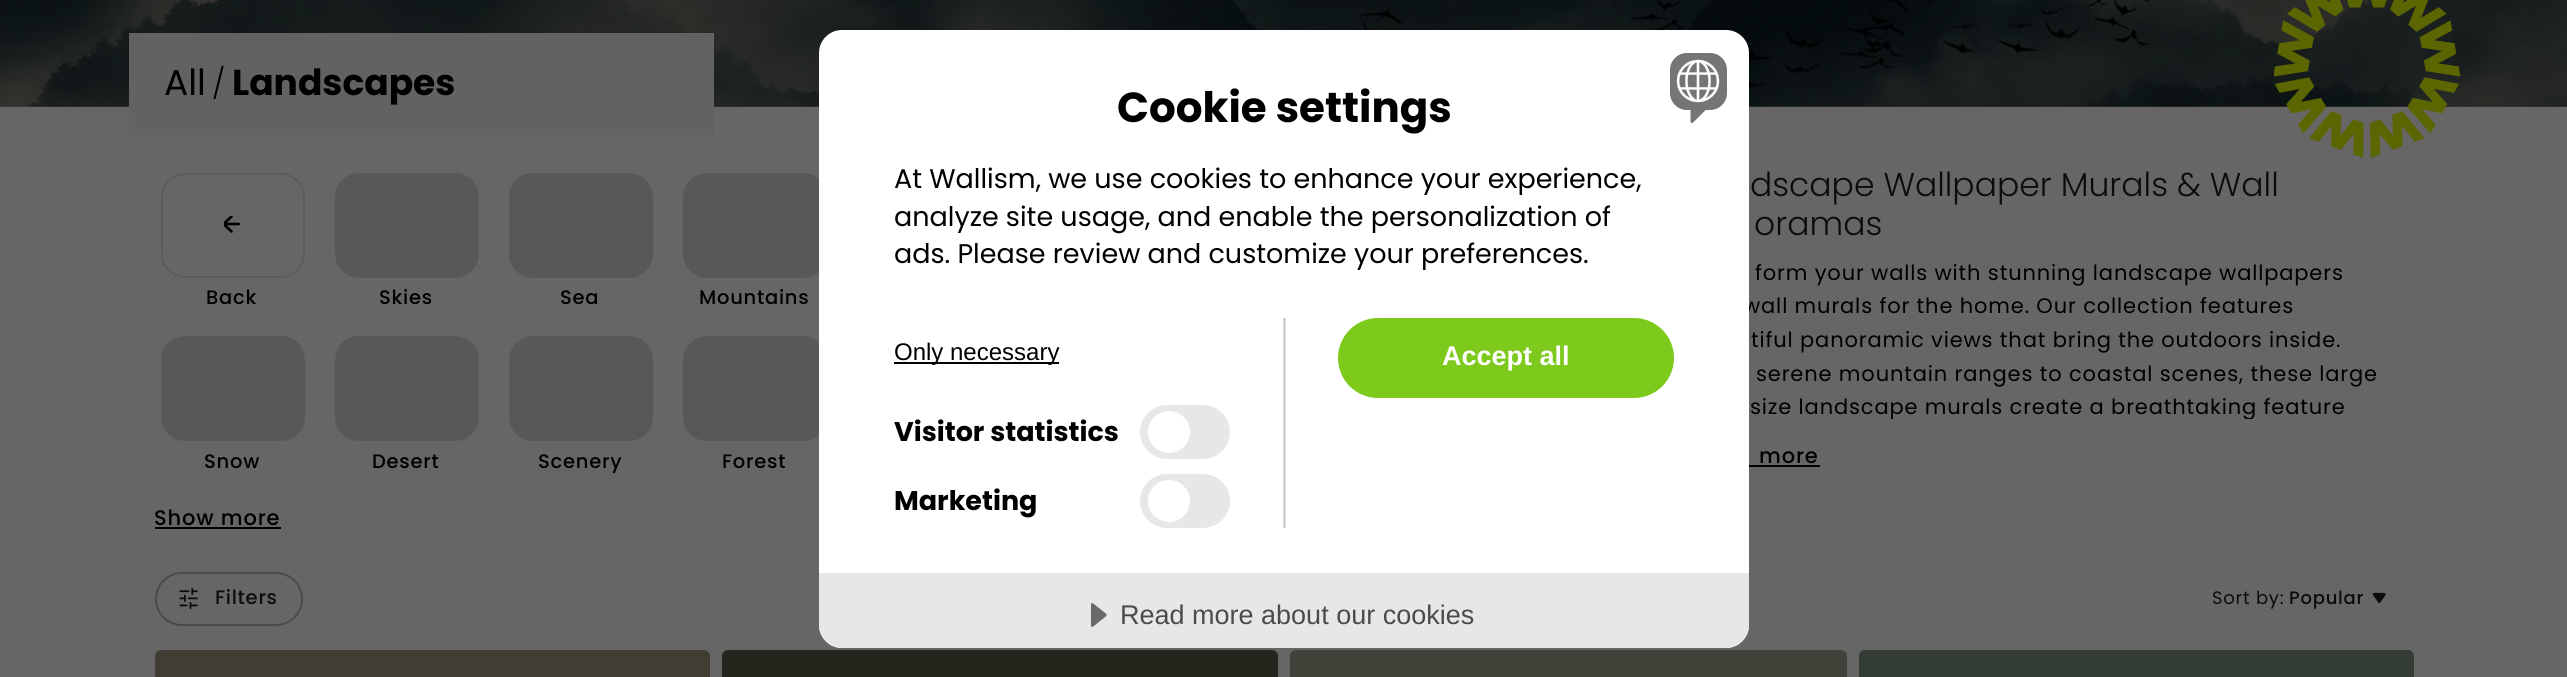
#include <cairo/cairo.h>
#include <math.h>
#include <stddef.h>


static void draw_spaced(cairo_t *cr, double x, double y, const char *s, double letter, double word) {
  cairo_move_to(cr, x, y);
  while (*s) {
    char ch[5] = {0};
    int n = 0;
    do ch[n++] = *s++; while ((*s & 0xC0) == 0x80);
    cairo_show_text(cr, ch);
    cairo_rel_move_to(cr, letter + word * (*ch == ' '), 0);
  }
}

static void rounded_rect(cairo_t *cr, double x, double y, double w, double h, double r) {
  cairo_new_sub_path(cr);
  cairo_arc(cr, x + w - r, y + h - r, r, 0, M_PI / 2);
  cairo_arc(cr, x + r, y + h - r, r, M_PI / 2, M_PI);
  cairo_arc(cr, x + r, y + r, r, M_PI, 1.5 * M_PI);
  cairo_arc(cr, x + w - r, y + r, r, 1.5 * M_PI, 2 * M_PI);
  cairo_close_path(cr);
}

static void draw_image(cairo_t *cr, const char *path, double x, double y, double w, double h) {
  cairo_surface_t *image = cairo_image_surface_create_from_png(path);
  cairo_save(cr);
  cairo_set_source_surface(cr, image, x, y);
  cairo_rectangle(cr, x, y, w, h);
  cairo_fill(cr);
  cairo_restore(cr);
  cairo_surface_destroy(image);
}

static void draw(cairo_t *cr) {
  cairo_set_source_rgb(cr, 102 / 255.0, 102 / 255.0, 102 / 255.0);
  cairo_paint(cr);
  cairo_set_source_rgb(cr, 57 / 255.0, 56 / 255.0, 55 / 255.0);
  cairo_rectangle(cr, 0, 106, 2567, 1);
  cairo_fill(cr);
  draw_image(cr, "images/1.png", 0, 0, 2567, 107);
  cairo_set_source_rgb(cr, 99 / 255.0, 98 / 255.0, 97 / 255.0);
  cairo_rectangle(cr, 129, 33, 585, 102);
  cairo_fill(cr);
  draw_image(cr, "images/2.png", 2274, 0, 186, 158);
  rounded_rect(cr, 162, 174, 142, 103, 23);
  cairo_set_source_rgb(cr, 92 / 255.0, 92 / 255.0, 92 / 255.0);
  cairo_stroke(cr);
  cairo_save(cr);
  cairo_rectangle(cr, 224, 216, 18, 18);
  cairo_clip(cr);
  cairo_new_path(cr);
  cairo_move_to(cr, 239, 224);
  cairo_line_to(cr, 223.5, 224);
  cairo_move_to(cr, 223.5, 224);
  cairo_line_to(cr, 231.5, 231.5);
  cairo_move_to(cr, 223.5, 224);
  cairo_line_to(cr, 231.5, 216.5);
  cairo_set_source_rgb(cr, 0, 0, 0);
  cairo_set_line_width(cr, 2.6);
  cairo_set_line_cap(cr, CAIRO_LINE_CAP_ROUND);
  cairo_set_line_join(cr, CAIRO_LINE_JOIN_ROUND);
  cairo_stroke(cr);
  cairo_restore(cr);
  cairo_set_source_rgb(cr, 88 / 255.0, 88 / 255.0, 88 / 255.0);
  rounded_rect(cr, 335, 173, 144, 105, 24);
  cairo_fill(cr);
  rounded_rect(cr, 509, 173, 144, 105, 24);
  cairo_fill(cr);
  rounded_rect(cr, 683, 173, 144, 105, 24);
  cairo_fill(cr);
  rounded_rect(cr, 161, 336, 144, 105, 24);
  cairo_fill(cr);
  rounded_rect(cr, 335, 336, 144, 105, 24);
  cairo_fill(cr);
  rounded_rect(cr, 509, 336, 144, 105, 24);
  cairo_fill(cr);
  rounded_rect(cr, 683, 336, 144, 105, 24);
  cairo_fill(cr);
  cairo_set_source_rgb(cr, 0, 0, 0);
  cairo_rectangle(cr, 155, 527, 126, 2);
  cairo_fill(cr);
  cairo_rectangle(cr, 1749, 465, 71, 2);
  cairo_fill(cr);
  rounded_rect(cr, 156, 573, 146, 52, 26);
  cairo_set_source_rgb(cr, 75 / 255.0, 75 / 255.0, 75 / 255.0);
  cairo_stroke(cr);
  draw_image(cr, "images/3.png", 179, 588, 19, 21);
  draw_image(cr, "images/4.png", 2372, 592, 14, 11);
  cairo_set_source_rgb(cr, 63 / 255.0, 61 / 255.0, 52 / 255.0);
  rounded_rect(cr, 155, 650, 555, 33, 6);
  cairo_fill(cr);
  draw_image(cr, "images/5.png", 659, 676, 17, 1);
  cairo_set_source_rgb(cr, 38 / 255.0, 37 / 255.0, 29 / 255.0);
  rounded_rect(cr, 722, 650, 556, 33, 6);
  cairo_fill(cr);
  draw_image(cr, "images/6.png", 1228, 676, 16, 1);
  cairo_set_source_rgb(cr, 66 / 255.0, 66 / 255.0, 58 / 255.0);
  rounded_rect(cr, 1290, 650, 557, 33, 6);
  cairo_fill(cr);
  draw_image(cr, "images/7.png", 1796, 676, 17, 1);
  cairo_set_source_rgb(cr, 51 / 255.0, 61 / 255.0, 54 / 255.0);
  rounded_rect(cr, 1859, 650, 555, 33, 6);
  cairo_fill(cr);
  draw_image(cr, "images/8.png", 2363, 676, 17, 1);
  cairo_select_font_face(cr, "Poppins", CAIRO_FONT_SLANT_NORMAL, CAIRO_FONT_WEIGHT_NORMAL);
  cairo_set_font_size(cr, 36);
  cairo_set_source_rgb(cr, 0, 0, 0);
  cairo_move_to(cr, 164, 95);
  cairo_show_text(cr, "All");
  cairo_select_font_face(cr, "Poppins Light", CAIRO_FONT_SLANT_NORMAL, CAIRO_FONT_WEIGHT_NORMAL);
  cairo_set_font_size(cr, 30);
  cairo_move_to(cr, 212, 94);
  cairo_show_text(cr, "/");
  cairo_select_font_face(cr, "Poppins", CAIRO_FONT_SLANT_NORMAL, CAIRO_FONT_WEIGHT_BOLD);
  cairo_set_font_size(cr, 36);
  cairo_move_to(cr, 232, 95);
  cairo_show_text(cr, "Landscapes");
  cairo_select_font_face(cr, "Poppins Medium", CAIRO_FONT_SLANT_NORMAL, CAIRO_FONT_WEIGHT_NORMAL);
  cairo_set_font_size(cr, 19.5);
  draw_spaced(cr, 206, 304, "Back", 0.75, 0);
  draw_spaced(cr, 379, 304, "Skies", 0.75, 0);
  draw_spaced(cr, 560, 304, "Sea", 0.75, 0);
  draw_spaced(cr, 699, 304, "Mountains", 0.75, 0);
  draw_spaced(cr, 204, 468, "Snow", 0.75, 0);
  draw_spaced(cr, 372, 468, "Desert", 0.75, 0);
  draw_spaced(cr, 538, 468, "Scenery", 0.75, 0);
  draw_spaced(cr, 722, 468, "Forest", 0.75, 0);
  cairo_set_font_size(cr, 21);
  draw_spaced(cr, 154, 525, "Show more", 0.85, 0);
  cairo_select_font_face(cr, "Poppins Light", CAIRO_FONT_SLANT_NORMAL, CAIRO_FONT_WEIGHT_NORMAL);
  cairo_set_font_size(cr, 33);
  cairo_set_source_rgb(cr, 12 / 255.0, 12 / 255.0, 12 / 255.0);
  cairo_move_to(cr, 1750, 196);
  cairo_show_text(cr, "dscape Wallpaper Murals & Wall");
  cairo_move_to(cr, 1754, 235);
  cairo_show_text(cr, "oramas");
  cairo_select_font_face(cr, "Poppins", CAIRO_FONT_SLANT_NORMAL, CAIRO_FONT_WEIGHT_NORMAL);
  cairo_set_font_size(cr, 21);
  cairo_set_source_rgb(cr, 0, 0, 0);
  draw_spaced(cr, 1755, 280, "form your walls with stunning landscape wallpapers", 0.85, 0);
  draw_spaced(cr, 1743, 313, "wall murals for the home. Our collection features", 0.85, 0);
  draw_spaced(cr, 1751, 347, "tiful panoramic views that bring the outdoors inside.", 0.85, 0);
  draw_spaced(cr, 1756, 381, "serene mountain ranges to coastal scenes, these large", 0.85, 0);
  cairo_save(cr);
  cairo_rectangle(cr, 1692, 167, 698, 252);
  cairo_clip(cr);
  draw_spaced(cr, 1750, 414, "size landscape murals create a breathtaking feature", 0.85, 0);
  cairo_restore(cr);
  cairo_select_font_face(cr, "Poppins Medium", CAIRO_FONT_SLANT_NORMAL, CAIRO_FONT_WEIGHT_NORMAL);
  draw_spaced(cr, 1759, 463, "more", 0.85, 0);
  cairo_set_font_size(cr, 19.5);
  cairo_set_source_rgb(cr, 12 / 255.0, 12 / 255.0, 12 / 255.0);
  draw_spaced(cr, 215, 604, "Filters", 0.75, 0);
  cairo_select_font_face(cr, "Poppins", CAIRO_FONT_SLANT_NORMAL, CAIRO_FONT_WEIGHT_NORMAL);
  cairo_set_font_size(cr, 18);
  draw_spaced(cr, 2212, 604, "Sort by:", 0.75, 0);
  cairo_select_font_face(cr, "Poppins Medium", CAIRO_FONT_SLANT_NORMAL, CAIRO_FONT_WEIGHT_NORMAL);
  draw_spaced(cr, 2289, 604, "Popular", 0.75, 0);
  cairo_set_source_rgb(cr, 1, 1, 1);
  rounded_rect(cr, 819, 30, 930, 618, 23);
  cairo_fill(cr);
  cairo_set_source_rgb(cr, 224 / 255.0, 224 / 255.0, 224 / 255.0);
  cairo_rectangle(cr, 1285, 318, 1, 210);
  cairo_fill(cr);
  cairo_select_font_face(cr, "Poppins", CAIRO_FONT_SLANT_NORMAL, CAIRO_FONT_WEIGHT_BOLD);
  cairo_set_font_size(cr, 42);
  cairo_set_source_rgb(cr, 0, 0, 0);
  cairo_move_to(cr, 1117, 122);
  cairo_show_text(cr, "Cookie settings");
  cairo_select_font_face(cr, "Poppins", CAIRO_FONT_SLANT_NORMAL, CAIRO_FONT_WEIGHT_NORMAL);
  cairo_set_font_size(cr, 27);
  cairo_move_to(cr, 894, 188);
  cairo_show_text(cr, "At Wallism, we use cookies to enhance your experience,");
  cairo_move_to(cr, 894, 226);
  cairo_show_text(cr, "analyze site usage, and enable the personalization of");
  cairo_move_to(cr, 894, 263);
  cairo_show_text(cr, "ads. Please review and customize your preferences.");
  cairo_set_source_rgb(cr, 224 / 255.0, 224 / 255.0, 224 / 255.0);
  cairo_rectangle(cr, 1283, 318, 1, 210);
  cairo_fill(cr);
  cairo_set_source_rgb(cr, 197 / 255.0, 197 / 255.0, 197 / 255.0);
  cairo_rectangle(cr, 1284, 318, 1, 210);
  cairo_fill(cr);
  cairo_set_source_rgb(cr, 0, 0, 0);
  cairo_rectangle(cr, 894, 362, 165, 2);
  cairo_fill(cr);
  cairo_select_font_face(cr, "Liberation Sans", CAIRO_FONT_SLANT_NORMAL, CAIRO_FONT_WEIGHT_NORMAL);
  cairo_set_font_size(cr, 24);
  cairo_move_to(cr, 894, 360);
  cairo_show_text(cr, "Only necessary");
  cairo_select_font_face(cr, "Poppins", CAIRO_FONT_SLANT_NORMAL, CAIRO_FONT_WEIGHT_BOLD);
  cairo_set_font_size(cr, 27);
  cairo_move_to(cr, 894, 441);
  cairo_show_text(cr, "Visitor statistics");
  cairo_set_source_rgb(cr, 231 / 255.0, 231 / 255.0, 231 / 255.0);
  rounded_rect(cr, 1140, 405, 90, 54, 27);
  cairo_fill(cr);
  cairo_set_source_rgb(cr, 1, 1, 1);
  cairo_arc(cr, 1169, 432, 21, 0, 2 * M_PI);
  cairo_fill(cr);
  cairo_set_source_rgb(cr, 0, 0, 0);
  cairo_move_to(cr, 894, 510);
  cairo_show_text(cr, "Marketing");
  cairo_set_source_rgb(cr, 231 / 255.0, 231 / 255.0, 231 / 255.0);
  rounded_rect(cr, 1140, 474, 90, 54, 27);
  cairo_fill(cr);
  cairo_set_source_rgb(cr, 1, 1, 1);
  cairo_arc(cr, 1169, 501, 21, 0, 2 * M_PI);
  cairo_fill(cr);
  cairo_set_source_rgb(cr, 125 / 255.0, 201 / 255.0, 28 / 255.0);
  rounded_rect(cr, 1338, 318, 336, 80, 40);
  cairo_fill(cr);
  cairo_select_font_face(cr, "Liberation Sans", CAIRO_FONT_SLANT_NORMAL, CAIRO_FONT_WEIGHT_BOLD);
  cairo_set_source_rgb(cr, 1, 1, 1);
  cairo_move_to(cr, 1442, 365);
  cairo_show_text(cr, "Accept all");
  draw_image(cr, "images/9.png", 1670, 53, 57, 70);
  cairo_set_source_rgb(cr, 231 / 255.0, 231 / 255.0, 231 / 255.0);
  cairo_new_path(cr);
  cairo_move_to(cr, 819, 573);
  cairo_line_to(cr, 1749, 573);
  cairo_line_to(cr, 1749, 625);
  cairo_curve_to(cr, 1749, 637.5, 1738.5, 648, 1726, 648);
  cairo_line_to(cr, 842, 648);
  cairo_curve_to(cr, 829.5, 648, 819, 637.5, 819, 625);
  cairo_close_path(cr);
  cairo_fill(cr);
  draw_image(cr, "images/10.png", 1091, 603, 16, 24);
  cairo_select_font_face(cr, "Liberation Sans", CAIRO_FONT_SLANT_NORMAL, CAIRO_FONT_WEIGHT_NORMAL);
  cairo_set_source_rgb(cr, 75 / 255.0, 75 / 255.0, 75 / 255.0);
  cairo_move_to(cr, 1120, 624);
  cairo_show_text(cr, "Read more about our cookies");
}

int main(void) {
  cairo_surface_t *surface = cairo_image_surface_create(CAIRO_FORMAT_RGB24, 2567, 677);
  cairo_t *cr = cairo_create(surface);
  cairo_font_options_t *options = cairo_font_options_create();
  cairo_font_options_set_hint_metrics(options, CAIRO_HINT_METRICS_OFF);
  cairo_font_options_set_hint_style(options, CAIRO_HINT_STYLE_NONE);
  cairo_set_font_options(cr, options);
  cairo_set_miter_limit(cr, 4);
  draw(cr);
  cairo_surface_write_to_png(surface, "out.png");
  cairo_font_options_destroy(options);
  cairo_destroy(cr);
  cairo_surface_destroy(surface);
  return 0;
}
